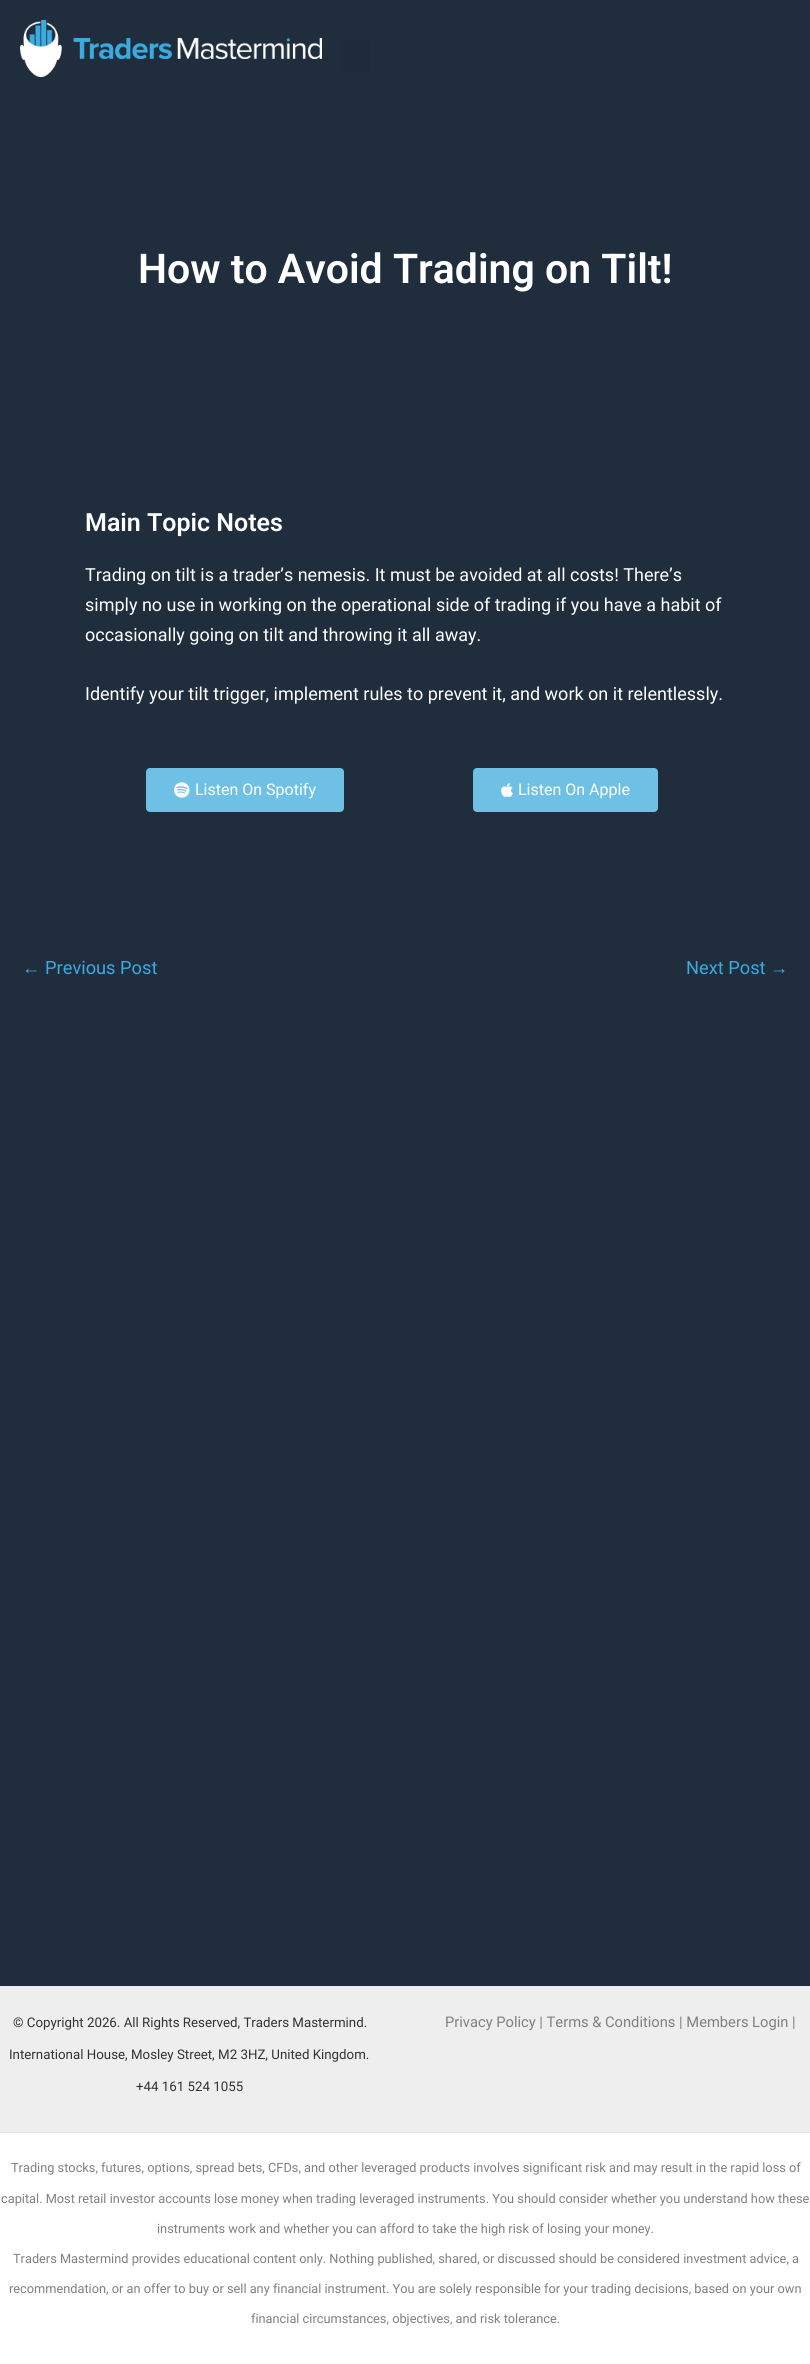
#include <cairo/cairo.h>
#include <math.h>
#include <stddef.h>


static void rounded_rect(cairo_t *cr, double x, double y, double w, double h, double r) {
  cairo_new_sub_path(cr);
  cairo_arc(cr, x + w - r, y + h - r, r, 0, M_PI / 2);
  cairo_arc(cr, x + r, y + h - r, r, M_PI / 2, M_PI);
  cairo_arc(cr, x + r, y + r, r, M_PI, 1.5 * M_PI);
  cairo_arc(cr, x + w - r, y + r, r, 1.5 * M_PI, 2 * M_PI);
  cairo_close_path(cr);
}

static void draw_image(cairo_t *cr, const char *path, double x, double y, double w, double h) {
  cairo_surface_t *image = cairo_image_surface_create_from_png(path);
  cairo_save(cr);
  cairo_set_source_surface(cr, image, x, y);
  cairo_rectangle(cr, x, y, w, h);
  cairo_fill(cr);
  cairo_restore(cr);
  cairo_surface_destroy(image);
}

static void draw(cairo_t *cr) {
  cairo_set_source_rgb(cr, 31 / 255.0, 45 / 255.0, 61 / 255.0);
  cairo_paint(cr);
  draw_image(cr, "images/1.png", 20, 20, 302, 57);
  cairo_set_source_rgb(cr, 29 / 255.0, 43 / 255.0, 58 / 255.0);
  rounded_rect(cr, 343, 39, 28, 33, 3);
  cairo_fill(cr);
  cairo_set_source_rgb(cr, 110 / 255.0, 193 / 255.0, 228 / 255.0);
  rounded_rect(cr, 146, 768, 198, 44, 4);
  cairo_fill(cr);
  draw_image(cr, "images/2.png", 174, 782, 16, 16);
  rounded_rect(cr, 473, 768, 185, 44, 4);
  cairo_fill(cr);
  draw_image(cr, "images/3.png", 501, 783, 12, 14);
  cairo_set_source_rgb(cr, 238 / 255.0, 238 / 255.0, 238 / 255.0);
  cairo_rectangle(cr, 0, 1986, 810, 146);
  cairo_fill(cr);
  cairo_set_source_rgb(cr, 1, 1, 1);
  cairo_rectangle(cr, 0, 2133, 810, 231);
  cairo_fill(cr);
  cairo_set_source_rgb(cr, 229 / 255.0, 229 / 255.0, 229 / 255.0);
  cairo_rectangle(cr, 0, 2132, 810, 1);
  cairo_fill(cr);
  cairo_select_font_face(cr, "Roboto SemiBold", CAIRO_FONT_SLANT_NORMAL, CAIRO_FONT_WEIGHT_NORMAL);
  cairo_set_font_size(cr, 41);
  cairo_set_source_rgb(cr, 1, 1, 1);
  cairo_move_to(cr, 138, 283);
  cairo_show_text(cr, "How to Avoid Trading on Tilt!");
  cairo_set_font_size(cr, 25);
  cairo_move_to(cr, 85, 531);
  cairo_show_text(cr, "Main Topic Notes");
  cairo_select_font_face(cr, "Roboto", CAIRO_FONT_SLANT_NORMAL, CAIRO_FONT_WEIGHT_NORMAL);
  cairo_set_font_size(cr, 18);
  cairo_move_to(cr, 85, 581);
  cairo_show_text(cr, "Trading on tilt is a trader’s nemesis. It must be avoided at all costs! There’s");
  cairo_move_to(cr, 85, 611);
  cairo_show_text(cr, "simply no use in working on the operational side of trading if you have a habit of");
  cairo_move_to(cr, 85, 641);
  cairo_show_text(cr, "occasionally going on tilt and throwing it all away.");
  cairo_move_to(cr, 85, 700);
  cairo_show_text(cr, "Identify your tilt trigger, implement rules to prevent it, and work on it relentlessly.");
  cairo_set_font_size(cr, 16);
  cairo_move_to(cr, 195, 795);
  cairo_show_text(cr, "Listen On Spotify");
  cairo_move_to(cr, 518, 795);
  cairo_show_text(cr, "Listen On Apple");
  cairo_select_font_face(cr, "Liberation Sans", CAIRO_FONT_SLANT_NORMAL, CAIRO_FONT_WEIGHT_NORMAL);
  cairo_set_font_size(cr, 18.25);
  cairo_set_source_rgb(cr, 58 / 255.0, 170 / 255.0, 224 / 255.0);
  cairo_move_to(cr, 22, 974);
  cairo_show_text(cr, "←");
  cairo_select_font_face(cr, "Roboto", CAIRO_FONT_SLANT_NORMAL, CAIRO_FONT_WEIGHT_NORMAL);
  cairo_move_to(cr, 45, 974);
  cairo_show_text(cr, "Previous Post");
  cairo_move_to(cr, 686, 974);
  cairo_show_text(cr, "Next Post");
  cairo_select_font_face(cr, "Liberation Sans", CAIRO_FONT_SLANT_NORMAL, CAIRO_FONT_WEIGHT_NORMAL);
  cairo_move_to(cr, 770, 974);
  cairo_show_text(cr, "→");
  cairo_select_font_face(cr, "Roboto", CAIRO_FONT_SLANT_NORMAL, CAIRO_FONT_WEIGHT_NORMAL);
  cairo_set_font_size(cr, 13.3);
  cairo_set_source_rgb(cr, 51 / 255.0, 51 / 255.0, 51 / 255.0);
  cairo_move_to(cr, 13, 2027);
  cairo_show_text(cr, "© Copyright 2026. All Rights Reserved, Traders Mastermind.");
  cairo_move_to(cr, 9, 2059);
  cairo_show_text(cr, "International House, Mosley Street, M2 3HZ, United Kingdom.");
  cairo_move_to(cr, 136, 2091);
  cairo_show_text(cr, "+44 161 524 1055");
  cairo_set_font_size(cr, 14.7);
  cairo_set_source_rgb(cr, 128 / 255.0, 128 / 255.0, 128 / 255.0);
  cairo_move_to(cr, 445, 2027);
  cairo_show_text(cr, "Privacy Policy | Terms & Conditions | Members Login |");
  cairo_set_font_size(cr, 12.77);
  cairo_move_to(cr, 11, 2172);
  cairo_show_text(cr, "Trading stocks, futures, options, spread bets, CFDs, and other leveraged products involves significant risk and may result in the rapid loss of");
  cairo_move_to(cr, 1, 2203);
  cairo_show_text(cr, "capital. Most retail investor accounts lose money when trading leveraged instruments. You should consider whether you understand how these");
  cairo_move_to(cr, 157, 2233);
  cairo_show_text(cr, "instruments work and whether you can afford to take the high risk of losing your money.");
  cairo_move_to(cr, 13, 2263);
  cairo_show_text(cr, "Traders Mastermind provides educational content only. Nothing published, shared, or discussed should be considered investment advice, a");
  cairo_move_to(cr, 9, 2293);
  cairo_show_text(cr, "recommendation, or an offer to buy or sell any financial instrument. You are solely responsible for your trading decisions, based on your own");
  cairo_move_to(cr, 251, 2323);
  cairo_show_text(cr, "financial circumstances, objectives, and risk tolerance.");
}

int main(void) {
  cairo_surface_t *surface = cairo_image_surface_create(CAIRO_FORMAT_RGB24, 810, 2364);
  cairo_t *cr = cairo_create(surface);
  cairo_font_options_t *options = cairo_font_options_create();
  cairo_font_options_set_hint_metrics(options, CAIRO_HINT_METRICS_OFF);
  cairo_font_options_set_hint_style(options, CAIRO_HINT_STYLE_NONE);
  cairo_set_font_options(cr, options);
  cairo_set_miter_limit(cr, 4);
  draw(cr);
  cairo_surface_write_to_png(surface, "out.png");
  cairo_font_options_destroy(options);
  cairo_destroy(cr);
  cairo_surface_destroy(surface);
  return 0;
}
